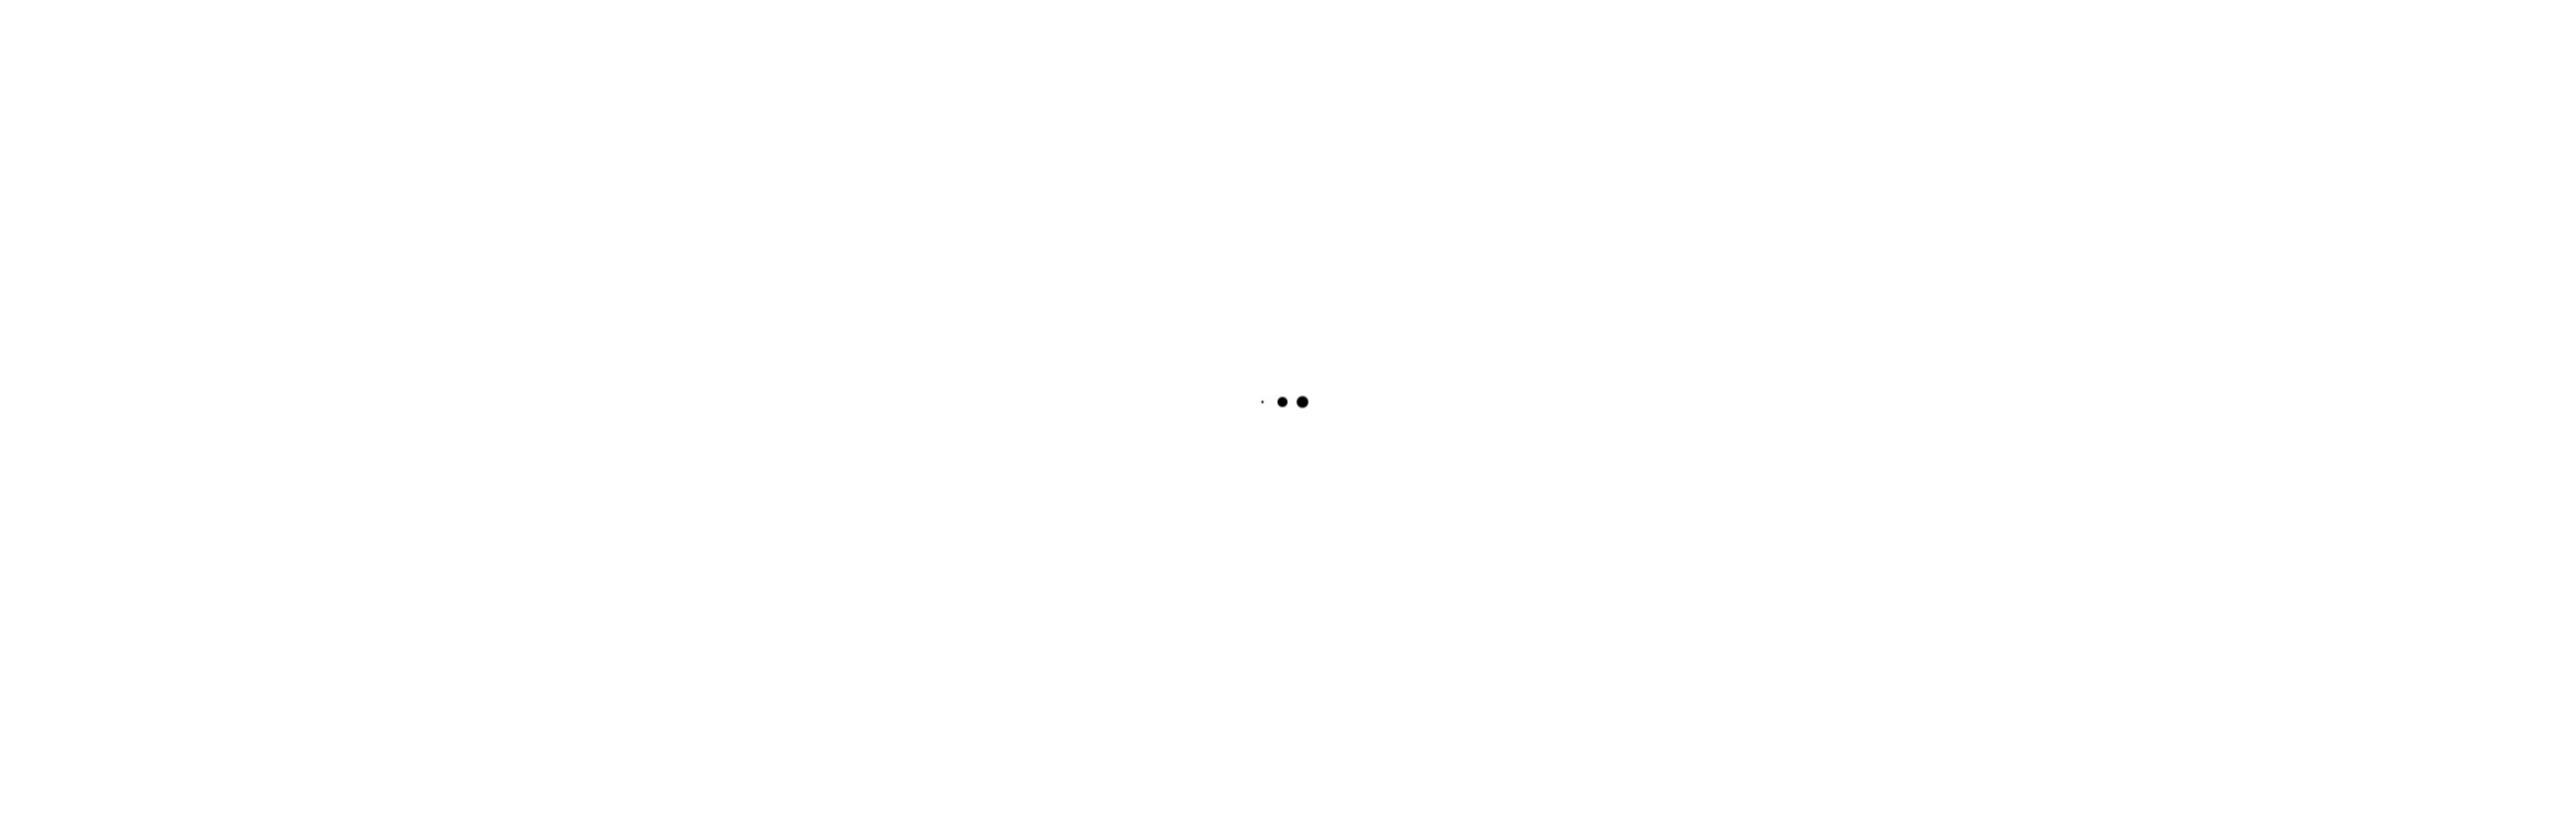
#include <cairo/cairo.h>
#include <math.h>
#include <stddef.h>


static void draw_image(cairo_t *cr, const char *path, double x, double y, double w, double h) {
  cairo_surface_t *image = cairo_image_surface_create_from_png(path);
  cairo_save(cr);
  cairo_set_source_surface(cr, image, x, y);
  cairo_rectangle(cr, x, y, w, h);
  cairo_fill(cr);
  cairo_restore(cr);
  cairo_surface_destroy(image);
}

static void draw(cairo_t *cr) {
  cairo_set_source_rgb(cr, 1, 1, 1);
  cairo_paint(cr);
  draw_image(cr, "images/1.png", 1260, 395, 49, 14);
}

int main(void) {
  cairo_surface_t *surface = cairo_image_surface_create(CAIRO_FORMAT_RGB24, 2563, 817);
  cairo_t *cr = cairo_create(surface);
  cairo_font_options_t *options = cairo_font_options_create();
  cairo_font_options_set_hint_metrics(options, CAIRO_HINT_METRICS_OFF);
  cairo_font_options_set_hint_style(options, CAIRO_HINT_STYLE_NONE);
  cairo_set_font_options(cr, options);
  cairo_set_miter_limit(cr, 4);
  draw(cr);
  cairo_surface_write_to_png(surface, "out.png");
  cairo_font_options_destroy(options);
  cairo_destroy(cr);
  cairo_surface_destroy(surface);
  return 0;
}
